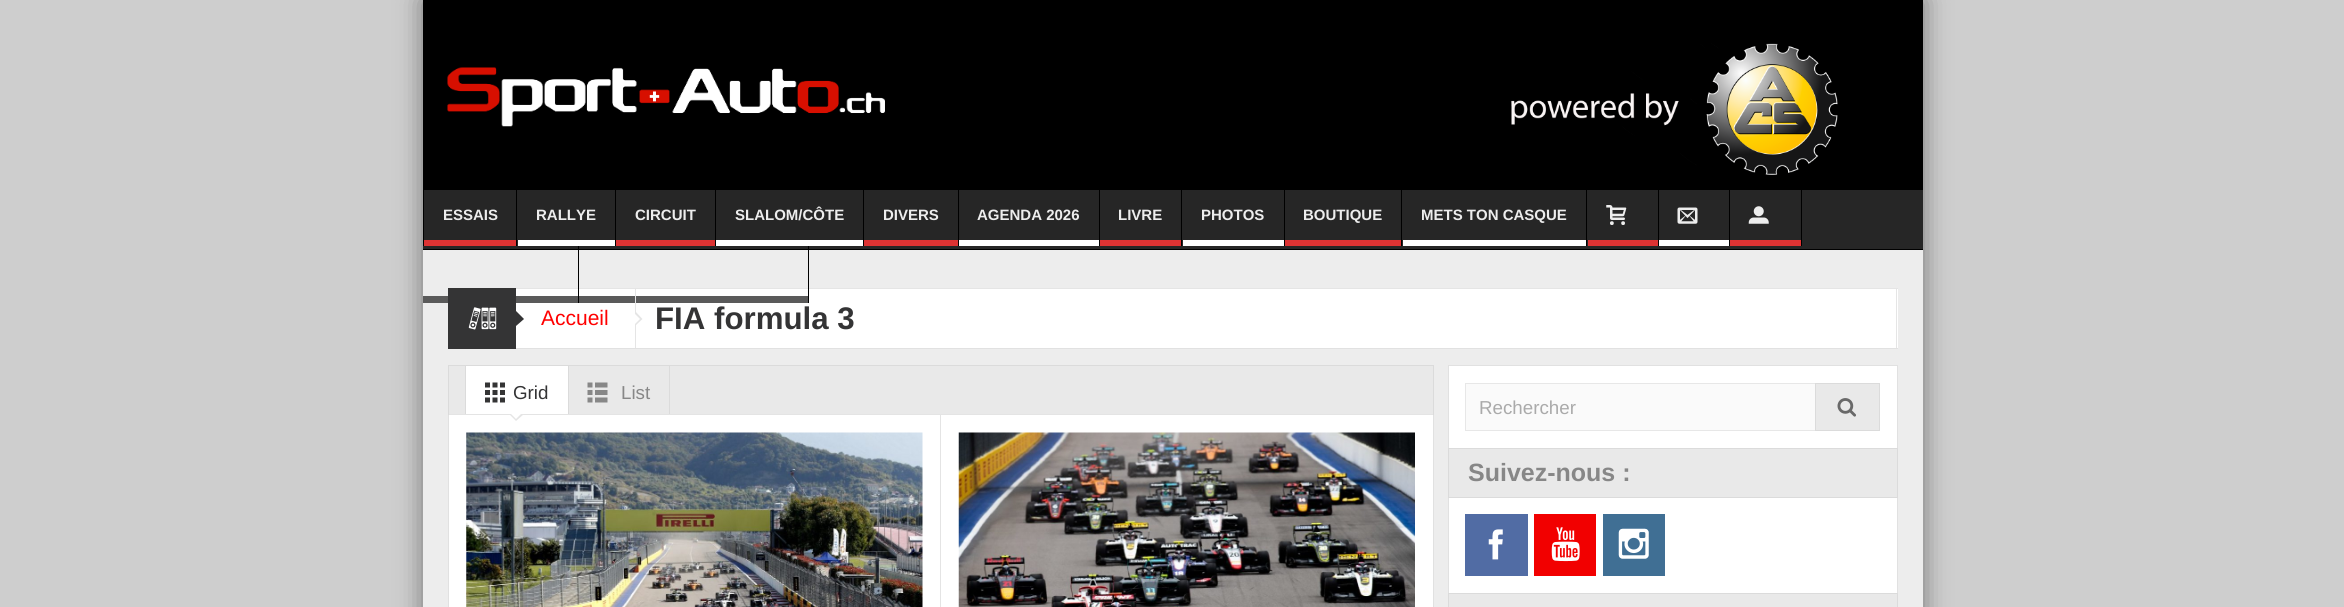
#include <cairo/cairo.h>
#include <math.h>
#include <stddef.h>


static void rounded_rect(cairo_t *cr, double x, double y, double w, double h, double r) {
  cairo_new_sub_path(cr);
  cairo_arc(cr, x + w - r, y + h - r, r, 0, M_PI / 2);
  cairo_arc(cr, x + r, y + h - r, r, M_PI / 2, M_PI);
  cairo_arc(cr, x + r, y + r, r, M_PI, 1.5 * M_PI);
  cairo_arc(cr, x + w - r, y + r, r, 1.5 * M_PI, 2 * M_PI);
  cairo_close_path(cr);
}

static void draw_shadow(cairo_t *cr, double x, double y, double w, double h, double r, double blur, double alpha) {
  cairo_push_group_with_content(cr, CAIRO_CONTENT_ALPHA);
  cairo_set_operator(cr, CAIRO_OPERATOR_SOURCE);
  for (int i = 15; i >= -15 && fmin(w, h) + blur * i / 3 > 0; i -= 2) {
    double e = blur * i / 6;
    cairo_set_source_rgba(cr, 0, 0, 0, alpha * erfc((i - 1) / 8.5) / 2);
    rounded_rect(cr, x - e, y - e, w + 2 * e, h + 2 * e, fmax(0, fmin(r + e + blur * .6, fmin(w, h) / 2 + e)));
    cairo_fill(cr);
  }
  cairo_pattern_t *soft = cairo_pop_group(cr);
  cairo_mask(cr, soft);
  cairo_pattern_destroy(soft);
}

static void draw_image(cairo_t *cr, const char *path, double x, double y, double w, double h) {
  cairo_surface_t *image = cairo_image_surface_create_from_png(path);
  cairo_save(cr);
  cairo_set_source_surface(cr, image, x, y);
  cairo_rectangle(cr, x, y, w, h);
  cairo_fill(cr);
  cairo_restore(cr);
  cairo_surface_destroy(image);
}

static void draw(cairo_t *cr) {
  cairo_set_source_rgb(cr, 206 / 255.0, 206 / 255.0, 206 / 255.0);
  cairo_paint(cr);
  cairo_set_source_rgb(cr, 0, 0, 0);
  draw_shadow(cr, 423, 0, 1500, 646, 0, 13, 0.44);
  cairo_set_source_rgb(cr, 237 / 255.0, 237 / 255.0, 237 / 255.0);
  cairo_rectangle(cr, 423, 250, 1500, 357);
  cairo_fill(cr);
  cairo_set_source_rgb(cr, 0, 0, 0);
  cairo_rectangle(cr, 423, 0, 1500, 190);
  cairo_fill(cr);
  draw_image(cr, "images/1.png", 447, 67, 438, 60);
  draw_image(cr, "images/2.png", 1511, 43, 327, 132);
  cairo_set_source_rgb(cr, 38 / 255.0, 38 / 255.0, 38 / 255.0);
  cairo_rectangle(cr, 423, 190, 1500, 59);
  cairo_fill(cr);
  cairo_set_source_rgb(cr, 0, 0, 0);
  cairo_rectangle(cr, 423, 249, 1500, 1);
  cairo_fill(cr);
  cairo_rectangle(cr, 516, 190, 1, 56);
  cairo_fill(cr);
  cairo_rectangle(cr, 423, 190, 1, 56);
  cairo_fill(cr);
  cairo_set_source_rgb(cr, 221 / 255.0, 51 / 255.0, 51 / 255.0);
  cairo_rectangle(cr, 424, 240, 92, 6);
  cairo_fill(cr);
  cairo_set_source_rgb(cr, 0, 0, 0);
  cairo_rectangle(cr, 615, 190, 1, 56);
  cairo_fill(cr);
  cairo_set_source_rgb(cr, 1, 1, 1);
  cairo_rectangle(cr, 518, 240, 97, 6);
  cairo_fill(cr);
  cairo_set_source_rgb(cr, 0, 0, 0);
  cairo_rectangle(cr, 715, 190, 1, 56);
  cairo_fill(cr);
  cairo_set_source_rgb(cr, 221 / 255.0, 51 / 255.0, 51 / 255.0);
  cairo_rectangle(cr, 616, 240, 99, 6);
  cairo_fill(cr);
  cairo_set_source_rgb(cr, 0, 0, 0);
  cairo_rectangle(cr, 863, 190, 1, 56);
  cairo_fill(cr);
  cairo_set_source_rgb(cr, 1, 1, 1);
  cairo_rectangle(cr, 716, 240, 147, 6);
  cairo_fill(cr);
  cairo_set_source_rgb(cr, 0, 0, 0);
  cairo_rectangle(cr, 958, 190, 1, 56);
  cairo_fill(cr);
  cairo_set_source_rgb(cr, 221 / 255.0, 51 / 255.0, 51 / 255.0);
  cairo_rectangle(cr, 864, 240, 94, 6);
  cairo_fill(cr);
  cairo_set_source_rgb(cr, 0, 0, 0);
  cairo_rectangle(cr, 1099, 190, 1, 56);
  cairo_fill(cr);
  cairo_set_source_rgb(cr, 1, 1, 1);
  cairo_rectangle(cr, 959, 240, 140, 6);
  cairo_fill(cr);
  cairo_set_source_rgb(cr, 0, 0, 0);
  cairo_rectangle(cr, 1181, 190, 1, 56);
  cairo_fill(cr);
  cairo_set_source_rgb(cr, 221 / 255.0, 51 / 255.0, 51 / 255.0);
  cairo_rectangle(cr, 1100, 240, 81, 6);
  cairo_fill(cr);
  cairo_set_source_rgb(cr, 0, 0, 0);
  cairo_rectangle(cr, 1284, 190, 1, 56);
  cairo_fill(cr);
  cairo_set_source_rgb(cr, 1, 1, 1);
  cairo_rectangle(cr, 1183, 240, 101, 6);
  cairo_fill(cr);
  cairo_set_source_rgb(cr, 0, 0, 0);
  cairo_rectangle(cr, 1401, 190, 1, 56);
  cairo_fill(cr);
  cairo_set_source_rgb(cr, 221 / 255.0, 51 / 255.0, 51 / 255.0);
  cairo_rectangle(cr, 1285, 240, 116, 6);
  cairo_fill(cr);
  cairo_set_source_rgb(cr, 0, 0, 0);
  cairo_rectangle(cr, 1586, 190, 1, 56);
  cairo_fill(cr);
  cairo_set_source_rgb(cr, 1, 1, 1);
  cairo_rectangle(cr, 1403, 240, 183, 6);
  cairo_fill(cr);
  cairo_set_source_rgb(cr, 0, 0, 0);
  cairo_rectangle(cr, 1658, 190, 1, 56);
  cairo_fill(cr);
  draw_image(cr, "images/3.png", 1606, 205, 21, 20);
  cairo_set_source_rgb(cr, 221 / 255.0, 51 / 255.0, 51 / 255.0);
  cairo_rectangle(cr, 1588, 240, 70, 6);
  cairo_fill(cr);
  cairo_set_source_rgb(cr, 0, 0, 0);
  cairo_rectangle(cr, 1729, 190, 1, 56);
  cairo_fill(cr);
  draw_image(cr, "images/4.png", 1677, 207, 21, 17);
  cairo_set_source_rgb(cr, 1, 1, 1);
  cairo_rectangle(cr, 1659, 240, 70, 6);
  cairo_fill(cr);
  cairo_set_source_rgb(cr, 0, 0, 0);
  cairo_rectangle(cr, 1801, 190, 1, 56);
  cairo_fill(cr);
  draw_image(cr, "images/5.png", 1748, 206, 21, 18);
  cairo_set_source_rgb(cr, 221 / 255.0, 51 / 255.0, 51 / 255.0);
  cairo_rectangle(cr, 1730, 240, 71, 6);
  cairo_fill(cr);
  cairo_set_source_rgb(cr, 1, 1, 1);
  cairo_rectangle(cr, 516, 289, 1382, 59);
  cairo_fill(cr);
  cairo_set_source_rgb(cr, 229 / 255.0, 229 / 255.0, 229 / 255.0);
  cairo_rectangle(cr, 516, 288, 1382, 1);
  cairo_fill(cr);
  cairo_set_source_rgb(cr, 0, 0, 0);
  cairo_rectangle(cr, 578, 246, 1, 57);
  cairo_fill(cr);
  cairo_set_source_rgb(cr, 90 / 255.0, 90 / 255.0, 90 / 255.0);
  cairo_rectangle(cr, 423, 296, 155, 7);
  cairo_fill(cr);
  cairo_set_source_rgb(cr, 0, 0, 0);
  cairo_rectangle(cr, 808, 246, 1, 57);
  cairo_fill(cr);
  cairo_set_source_rgb(cr, 90 / 255.0, 90 / 255.0, 90 / 255.0);
  cairo_rectangle(cr, 579, 296, 229, 7);
  cairo_fill(cr);
  cairo_set_source_rgb(cr, 229 / 255.0, 229 / 255.0, 229 / 255.0);
  cairo_rectangle(cr, 1896, 288, 1, 61);
  cairo_fill(cr);
  cairo_set_source_rgb(cr, 225 / 255.0, 225 / 255.0, 225 / 255.0);
  cairo_rectangle(cr, 516, 348, 1382, 1);
  cairo_fill(cr);
  cairo_set_source_rgb(cr, 52 / 255.0, 52 / 255.0, 53 / 255.0);
  cairo_rectangle(cr, 448, 288, 68, 61);
  cairo_fill(cr);
  draw_image(cr, "images/6.png", 468, 307, 29, 23);
  cairo_new_path(cr);
  cairo_move_to(cr, 516, 326);
  cairo_line_to(cr, 516, 311);
  cairo_line_to(cr, 524, 319);
  cairo_close_path(cr);
  cairo_fill(cr);
  cairo_set_source_rgb(cr, 229 / 255.0, 229 / 255.0, 229 / 255.0);
  cairo_rectangle(cr, 635, 289, 1, 59);
  cairo_fill(cr);
  cairo_new_path(cr);
  cairo_move_to(cr, 635, 326);
  cairo_line_to(cr, 635, 311);
  cairo_line_to(cr, 642.5, 319);
  cairo_close_path(cr);
  cairo_fill(cr);
  cairo_set_source_rgb(cr, 1, 1, 1);
  cairo_new_path(cr);
  cairo_move_to(cr, 635, 324);
  cairo_line_to(cr, 635, 314);
  cairo_line_to(cr, 640, 319);
  cairo_close_path(cr);
  cairo_fill(cr);
  cairo_rectangle(cr, 449, 415, 984, 192);
  cairo_fill(cr);
  cairo_rectangle(cr, 448.5, 365.5, 985, 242);
  cairo_set_source_rgb(cr, 225 / 255.0, 225 / 255.0, 225 / 255.0);
  cairo_set_line_width(cr, 1);
  cairo_stroke(cr);
  cairo_set_source_rgb(cr, 233 / 255.0, 233 / 255.0, 233 / 255.0);
  cairo_rectangle(cr, 448.5, 365.5, 985, 49);
  cairo_fill_preserve(cr);
  cairo_set_source_rgb(cr, 219 / 255.0, 219 / 255.0, 219 / 255.0);
  cairo_stroke(cr);
  cairo_set_source_rgb(cr, 1, 1, 1);
  cairo_rectangle(cr, 466, 366, 102, 48);
  cairo_fill(cr);
  cairo_set_source_rgb(cr, 219 / 255.0, 219 / 255.0, 219 / 255.0);
  cairo_rectangle(cr, 465, 366, 1, 48);
  cairo_fill(cr);
  draw_image(cr, "images/7.png", 485, 382, 20, 21);
  cairo_set_source_rgb(cr, 228 / 255.0, 228 / 255.0, 228 / 255.0);
  cairo_rectangle(cr, 449, 414, 984, 1);
  cairo_fill(cr);
  cairo_set_source_rgb(cr, 229 / 255.0, 229 / 255.0, 229 / 255.0);
  cairo_new_path(cr);
  cairo_move_to(cr, 509, 414);
  cairo_line_to(cr, 524, 414);
  cairo_line_to(cr, 516, 421);
  cairo_close_path(cr);
  cairo_fill(cr);
  cairo_set_source_rgb(cr, 1, 1, 1);
  cairo_new_path(cr);
  cairo_move_to(cr, 511, 414);
  cairo_line_to(cr, 521, 414);
  cairo_line_to(cr, 516, 419);
  cairo_close_path(cr);
  cairo_fill(cr);
  cairo_set_source_rgb(cr, 219 / 255.0, 219 / 255.0, 219 / 255.0);
  cairo_rectangle(cr, 669, 366, 1, 48);
  cairo_fill(cr);
  cairo_rectangle(cr, 568, 366, 1, 48);
  cairo_fill(cr);
  draw_image(cr, "images/8.png", 587, 382, 21, 21);
  draw_image(cr, "images/9.png", 466, 432, 457, 175);
  cairo_set_source_rgb(cr, 228 / 255.0, 228 / 255.0, 228 / 255.0);
  cairo_rectangle(cr, 940, 414, 1, 193);
  cairo_fill(cr);
  draw_image(cr, "images/10.png", 958, 432, 457, 175);
  cairo_set_source_rgb(cr, 1, 1, 1);
  cairo_rectangle(cr, 1449, 366, 448, 227);
  cairo_fill(cr);
  cairo_rectangle(cr, 1448.5, 365.5, 449, 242);
  cairo_set_source_rgb(cr, 225 / 255.0, 225 / 255.0, 225 / 255.0);
  cairo_stroke(cr);
  cairo_set_source_rgb(cr, 250 / 255.0, 250 / 255.0, 250 / 255.0);
  cairo_rectangle(cr, 1466, 384, 349, 46);
  cairo_fill(cr);
  cairo_set_source_rgb(cr, 231 / 255.0, 231 / 255.0, 231 / 255.0);
  cairo_rectangle(cr, 1465, 383, 350, 1);
  cairo_fill(cr);
  cairo_rectangle(cr, 1465, 430, 350, 1);
  cairo_fill(cr);
  cairo_rectangle(cr, 1465, 383, 1, 48);
  cairo_fill(cr);
  cairo_set_source_rgb(cr, 233 / 255.0, 233 / 255.0, 233 / 255.0);
  cairo_rectangle(cr, 1815.5, 383.5, 64, 47);
  cairo_fill_preserve(cr);
  cairo_set_source_rgb(cr, 219 / 255.0, 219 / 255.0, 219 / 255.0);
  cairo_stroke(cr);
  draw_image(cr, "images/11.png", 1837, 398, 19, 19);
  cairo_set_source_rgb(cr, 233 / 255.0, 233 / 255.0, 233 / 255.0);
  cairo_rectangle(cr, 1448.5, 448.5, 449, 49);
  cairo_fill_preserve(cr);
  cairo_set_source_rgb(cr, 219 / 255.0, 219 / 255.0, 219 / 255.0);
  cairo_stroke(cr);
  cairo_set_source_rgb(cr, 81 / 255.0, 108 / 255.0, 164 / 255.0);
  cairo_rectangle(cr, 1465, 514, 63, 62);
  cairo_fill(cr);
  draw_image(cr, "images/12.png", 1488, 529, 15, 31);
  cairo_set_source_rgb(cr, 242 / 255.0, 0, 0);
  cairo_rectangle(cr, 1534, 514, 62, 62);
  cairo_fill(cr);
  draw_image(cr, "images/13.png", 1551, 527, 29, 35);
  cairo_set_source_rgb(cr, 64 / 255.0, 111 / 255.0, 148 / 255.0);
  cairo_rectangle(cr, 1603, 514, 62, 62);
  cairo_fill(cr);
  draw_image(cr, "images/14.png", 1618, 528, 31, 31);
  cairo_set_source_rgb(cr, 233 / 255.0, 233 / 255.0, 233 / 255.0);
  cairo_rectangle(cr, 1448.5, 593.5, 449, 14);
  cairo_fill_preserve(cr);
  cairo_set_source_rgb(cr, 219 / 255.0, 219 / 255.0, 219 / 255.0);
  cairo_stroke(cr);
  cairo_select_font_face(cr, "Liberation Sans", CAIRO_FONT_SLANT_NORMAL, CAIRO_FONT_WEIGHT_BOLD);
  cairo_set_font_size(cr, 15);
  cairo_set_source_rgb(cr, 237 / 255.0, 237 / 255.0, 237 / 255.0);
  cairo_move_to(cr, 443, 220);
  cairo_show_text(cr, "ESSAIS");
  cairo_move_to(cr, 536, 220);
  cairo_show_text(cr, "RALLYE");
  cairo_move_to(cr, 635, 220);
  cairo_show_text(cr, "CIRCUIT");
  cairo_move_to(cr, 735, 220);
  cairo_show_text(cr, "SLALOM/CÔTE");
  cairo_move_to(cr, 883, 220);
  cairo_show_text(cr, "DIVERS");
  cairo_move_to(cr, 977, 220);
  cairo_show_text(cr, "AGENDA 2026");
  cairo_move_to(cr, 1118, 220);
  cairo_show_text(cr, "LIVRE");
  cairo_move_to(cr, 1201, 220);
  cairo_show_text(cr, "PHOTOS");
  cairo_move_to(cr, 1303, 220);
  cairo_show_text(cr, "BOUTIQUE");
  cairo_move_to(cr, 1421, 220);
  cairo_show_text(cr, "METS TON CASQUE");
  cairo_select_font_face(cr, "Liberation Sans", CAIRO_FONT_SLANT_NORMAL, CAIRO_FONT_WEIGHT_NORMAL);
  cairo_set_font_size(cr, 21);
  cairo_set_source_rgb(cr, 1, 0, 0);
  cairo_move_to(cr, 541, 325);
  cairo_show_text(cr, "Accueil");
  cairo_select_font_face(cr, "Liberation Sans", CAIRO_FONT_SLANT_NORMAL, CAIRO_FONT_WEIGHT_BOLD);
  cairo_set_font_size(cr, 31.25);
  cairo_set_source_rgb(cr, 52 / 255.0, 52 / 255.0, 53 / 255.0);
  cairo_move_to(cr, 655, 329);
  cairo_show_text(cr, "FIA formula 3");
  cairo_select_font_face(cr, "Liberation Sans", CAIRO_FONT_SLANT_NORMAL, CAIRO_FONT_WEIGHT_NORMAL);
  cairo_set_font_size(cr, 18.75);
  cairo_move_to(cr, 513, 399);
  cairo_show_text(cr, "Grid");
  cairo_set_source_rgb(cr, 135 / 255.0, 135 / 255.0, 135 / 255.0);
  cairo_move_to(cr, 621, 399);
  cairo_show_text(cr, "List");
  cairo_set_source_rgb(cr, 170 / 255.0, 170 / 255.0, 170 / 255.0);
  cairo_move_to(cr, 1479, 414);
  cairo_show_text(cr, "Rechercher");
  cairo_select_font_face(cr, "Liberation Sans", CAIRO_FONT_SLANT_NORMAL, CAIRO_FONT_WEIGHT_BOLD);
  cairo_set_font_size(cr, 25);
  cairo_set_source_rgb(cr, 135 / 255.0, 135 / 255.0, 135 / 255.0);
  cairo_move_to(cr, 1468, 481);
  cairo_show_text(cr, "Suivez-nous :");
}

int main(void) {
  cairo_surface_t *surface = cairo_image_surface_create(CAIRO_FORMAT_RGB24, 2344, 607);
  cairo_t *cr = cairo_create(surface);
  cairo_font_options_t *options = cairo_font_options_create();
  cairo_font_options_set_hint_metrics(options, CAIRO_HINT_METRICS_OFF);
  cairo_font_options_set_hint_style(options, CAIRO_HINT_STYLE_NONE);
  cairo_set_font_options(cr, options);
  cairo_set_miter_limit(cr, 4);
  draw(cr);
  cairo_surface_write_to_png(surface, "out.png");
  cairo_font_options_destroy(options);
  cairo_destroy(cr);
  cairo_surface_destroy(surface);
  return 0;
}
